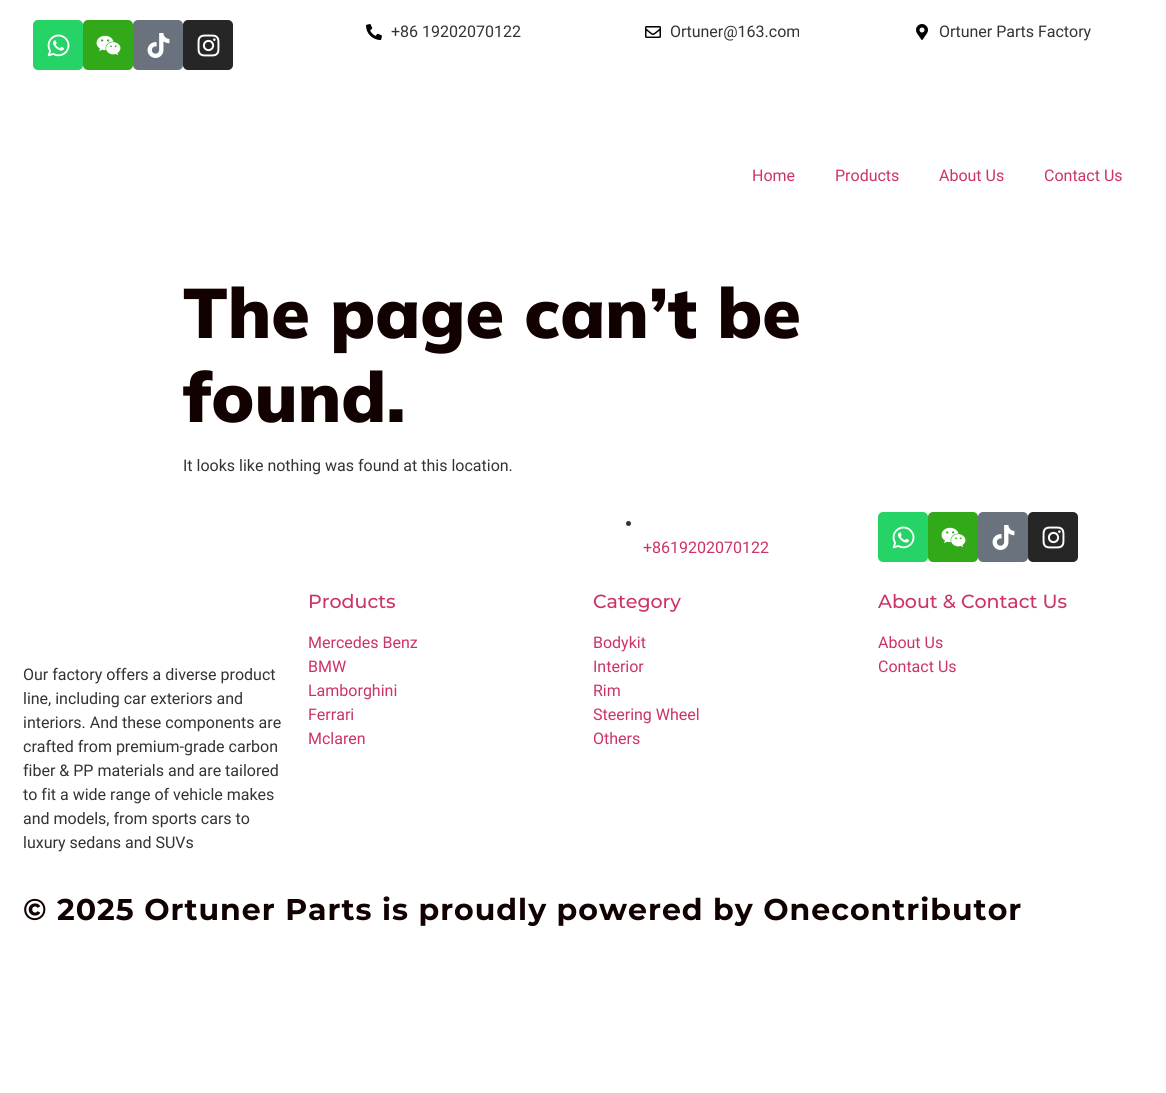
#include <cairo/cairo.h>
#include <math.h>
#include <stddef.h>


static void draw_spaced(cairo_t *cr, double x, double y, const char *s, double letter, double word) {
  cairo_move_to(cr, x, y);
  while (*s) {
    char ch[5] = {0};
    int n = 0;
    do ch[n++] = *s++; while ((*s & 0xC0) == 0x80);
    cairo_show_text(cr, ch);
    cairo_rel_move_to(cr, letter + word * (*ch == ' '), 0);
  }
}

static void rounded_rect(cairo_t *cr, double x, double y, double w, double h, double r) {
  cairo_new_sub_path(cr);
  cairo_arc(cr, x + w - r, y + h - r, r, 0, M_PI / 2);
  cairo_arc(cr, x + r, y + h - r, r, M_PI / 2, M_PI);
  cairo_arc(cr, x + r, y + r, r, M_PI, 1.5 * M_PI);
  cairo_arc(cr, x + w - r, y + r, r, 1.5 * M_PI, 2 * M_PI);
  cairo_close_path(cr);
}

static void draw_image(cairo_t *cr, const char *path, double x, double y, double w, double h) {
  cairo_surface_t *image = cairo_image_surface_create_from_png(path);
  cairo_save(cr);
  cairo_set_source_surface(cr, image, x, y);
  cairo_rectangle(cr, x, y, w, h);
  cairo_fill(cr);
  cairo_restore(cr);
  cairo_surface_destroy(image);
}

static void draw(cairo_t *cr) {
  cairo_set_source_rgb(cr, 1, 1, 1);
  cairo_paint(cr);
  cairo_set_source_rgb(cr, 37 / 255.0, 211 / 255.0, 102 / 255.0);
  rounded_rect(cr, 33, 20, 50, 50, 5);
  cairo_fill(cr);
  draw_image(cr, "images/1.png", 47, 34, 23, 23);
  cairo_set_source_rgb(cr, 49 / 255.0, 169 / 255.0, 24 / 255.0);
  rounded_rect(cr, 83, 20, 50, 50, 5);
  cairo_fill(cr);
  draw_image(cr, "images/2.png", 96, 35, 25, 21);
  cairo_set_source_rgb(cr, 105 / 255.0, 114 / 255.0, 125 / 255.0);
  rounded_rect(cr, 133, 20, 50, 50, 5);
  cairo_fill(cr);
  draw_image(cr, "images/3.png", 147, 33, 23, 25);
  cairo_set_source_rgb(cr, 38 / 255.0, 38 / 255.0, 38 / 255.0);
  rounded_rect(cr, 183, 20, 50, 50, 5);
  cairo_fill(cr);
  draw_image(cr, "images/4.png", 197, 34, 23, 23);
  draw_image(cr, "images/5.png", 366, 24, 16, 16);
  draw_image(cr, "images/6.png", 645, 26, 16, 12);
  draw_image(cr, "images/7.png", 916, 24, 12, 16);
  cairo_set_source_rgb(cr, 51 / 255.0, 51 / 255.0, 51 / 255.0);
  cairo_arc(cr, 628.5, 523.5, 2.5, 0, 2 * M_PI);
  cairo_fill(cr);
  cairo_set_source_rgb(cr, 37 / 255.0, 211 / 255.0, 102 / 255.0);
  rounded_rect(cr, 878, 512, 50, 50, 5);
  cairo_fill(cr);
  draw_image(cr, "images/1.png", 892, 526, 23, 23);
  cairo_set_source_rgb(cr, 49 / 255.0, 169 / 255.0, 24 / 255.0);
  rounded_rect(cr, 928, 512, 50, 50, 5);
  cairo_fill(cr);
  draw_image(cr, "images/2.png", 941, 527, 25, 21);
  cairo_set_source_rgb(cr, 105 / 255.0, 114 / 255.0, 125 / 255.0);
  rounded_rect(cr, 978, 512, 50, 50, 5);
  cairo_fill(cr);
  draw_image(cr, "images/3.png", 992, 525, 23, 25);
  cairo_set_source_rgb(cr, 38 / 255.0, 38 / 255.0, 38 / 255.0);
  rounded_rect(cr, 1028, 512, 50, 50, 5);
  cairo_fill(cr);
  draw_image(cr, "images/4.png", 1042, 526, 23, 23);
  cairo_select_font_face(cr, "Roboto", CAIRO_FONT_SLANT_NORMAL, CAIRO_FONT_WEIGHT_NORMAL);
  cairo_set_font_size(cr, 16);
  cairo_set_source_rgb(cr, 51 / 255.0, 51 / 255.0, 51 / 255.0);
  cairo_move_to(cr, 391, 37);
  cairo_show_text(cr, "+86 19202070122");
  cairo_move_to(cr, 670, 37);
  cairo_show_text(cr, "Ortuner@163.com");
  cairo_move_to(cr, 939, 37);
  cairo_show_text(cr, "Ortuner Parts Factory");
  cairo_set_source_rgb(cr, 204 / 255.0, 51 / 255.0, 102 / 255.0);
  cairo_move_to(cr, 752, 181);
  cairo_show_text(cr, "Home");
  cairo_move_to(cr, 835, 181);
  cairo_show_text(cr, "Products");
  cairo_move_to(cr, 939, 181);
  cairo_show_text(cr, "About Us");
  cairo_move_to(cr, 1044, 181);
  cairo_show_text(cr, "Contact Us");
  cairo_select_font_face(cr, "Mulish Black", CAIRO_FONT_SLANT_NORMAL, CAIRO_FONT_WEIGHT_NORMAL);
  cairo_set_font_size(cr, 70);
  cairo_set_source_rgb(cr, 18 / 255.0, 1 / 255.0, 1 / 255.0);
  cairo_move_to(cr, 183, 338);
  cairo_show_text(cr, "The page can’t be");
  cairo_move_to(cr, 183, 422);
  cairo_show_text(cr, "found.");
  cairo_select_font_face(cr, "Roboto", CAIRO_FONT_SLANT_NORMAL, CAIRO_FONT_WEIGHT_NORMAL);
  cairo_set_font_size(cr, 16);
  cairo_set_source_rgb(cr, 51 / 255.0, 51 / 255.0, 51 / 255.0);
  cairo_move_to(cr, 183, 471);
  cairo_show_text(cr, "It looks like nothing was found at this location.");
  cairo_set_source_rgb(cr, 204 / 255.0, 51 / 255.0, 102 / 255.0);
  cairo_move_to(cr, 643, 553);
  cairo_show_text(cr, "+8619202070122");
  cairo_set_source_rgb(cr, 51 / 255.0, 51 / 255.0, 51 / 255.0);
  cairo_move_to(cr, 23, 680);
  cairo_show_text(cr, "Our factory offers a diverse product");
  cairo_move_to(cr, 23, 704);
  cairo_show_text(cr, "line, including car exteriors and");
  cairo_move_to(cr, 23, 728);
  cairo_show_text(cr, "interiors. And these components are");
  cairo_move_to(cr, 23, 752);
  cairo_show_text(cr, "crafted from premium-grade carbon");
  cairo_move_to(cr, 23, 776);
  cairo_show_text(cr, "fiber & PP materials and are tailored");
  cairo_move_to(cr, 23, 800);
  cairo_show_text(cr, "to fit a wide range of vehicle makes");
  cairo_move_to(cr, 23, 824);
  cairo_show_text(cr, "and models, from sports cars to");
  cairo_move_to(cr, 23, 848);
  cairo_show_text(cr, "luxury sedans and SUVs");
  cairo_select_font_face(cr, "Montserrat Medium", CAIRO_FONT_SLANT_NORMAL, CAIRO_FONT_WEIGHT_NORMAL);
  cairo_set_font_size(cr, 19);
  cairo_set_source_rgb(cr, 204 / 255.0, 51 / 255.0, 102 / 255.0);
  cairo_move_to(cr, 308, 608);
  cairo_show_text(cr, "Products");
  cairo_select_font_face(cr, "Roboto", CAIRO_FONT_SLANT_NORMAL, CAIRO_FONT_WEIGHT_NORMAL);
  cairo_set_font_size(cr, 16);
  cairo_move_to(cr, 308, 648);
  cairo_show_text(cr, "Mercedes Benz");
  cairo_move_to(cr, 308, 672);
  cairo_show_text(cr, "BMW");
  cairo_move_to(cr, 308, 696);
  cairo_show_text(cr, "Lamborghini");
  cairo_move_to(cr, 308, 720);
  cairo_show_text(cr, "Ferrari");
  cairo_move_to(cr, 308, 744);
  cairo_show_text(cr, "Mclaren");
  cairo_select_font_face(cr, "Montserrat Medium", CAIRO_FONT_SLANT_NORMAL, CAIRO_FONT_WEIGHT_NORMAL);
  cairo_set_font_size(cr, 19);
  cairo_move_to(cr, 593, 608);
  cairo_show_text(cr, "Category");
  cairo_select_font_face(cr, "Roboto", CAIRO_FONT_SLANT_NORMAL, CAIRO_FONT_WEIGHT_NORMAL);
  cairo_set_font_size(cr, 16);
  cairo_move_to(cr, 593, 648);
  cairo_show_text(cr, "Bodykit");
  cairo_move_to(cr, 593, 672);
  cairo_show_text(cr, "Interior");
  cairo_move_to(cr, 593, 696);
  cairo_show_text(cr, "Rim");
  cairo_move_to(cr, 593, 720);
  cairo_show_text(cr, "Steering Wheel");
  cairo_move_to(cr, 593, 744);
  cairo_show_text(cr, "Others");
  cairo_select_font_face(cr, "Montserrat Medium", CAIRO_FONT_SLANT_NORMAL, CAIRO_FONT_WEIGHT_NORMAL);
  cairo_set_font_size(cr, 19);
  cairo_move_to(cr, 878, 608);
  cairo_show_text(cr, "About & Contact Us");
  cairo_select_font_face(cr, "Roboto", CAIRO_FONT_SLANT_NORMAL, CAIRO_FONT_WEIGHT_NORMAL);
  cairo_set_font_size(cr, 16);
  cairo_move_to(cr, 878, 648);
  cairo_show_text(cr, "About Us");
  cairo_move_to(cr, 878, 672);
  cairo_show_text(cr, "Contact Us");
  cairo_select_font_face(cr, "Montserrat", CAIRO_FONT_SLANT_NORMAL, CAIRO_FONT_WEIGHT_BOLD);
  cairo_set_font_size(cr, 30);
  cairo_set_source_rgb(cr, 18 / 255.0, 1 / 255.0, 1 / 255.0);
  draw_spaced(cr, 23, 920, "© 2025 Ortuner Parts is proudly powered by Onecontributor", 1, 0);
}

int main(void) {
  cairo_surface_t *surface = cairo_image_surface_create(CAIRO_FORMAT_RGB24, 1166, 1093);
  cairo_t *cr = cairo_create(surface);
  cairo_font_options_t *options = cairo_font_options_create();
  cairo_font_options_set_hint_metrics(options, CAIRO_HINT_METRICS_OFF);
  cairo_font_options_set_hint_style(options, CAIRO_HINT_STYLE_NONE);
  cairo_set_font_options(cr, options);
  cairo_set_miter_limit(cr, 4);
  draw(cr);
  cairo_surface_write_to_png(surface, "out.png");
  cairo_font_options_destroy(options);
  cairo_destroy(cr);
  cairo_surface_destroy(surface);
  return 0;
}
